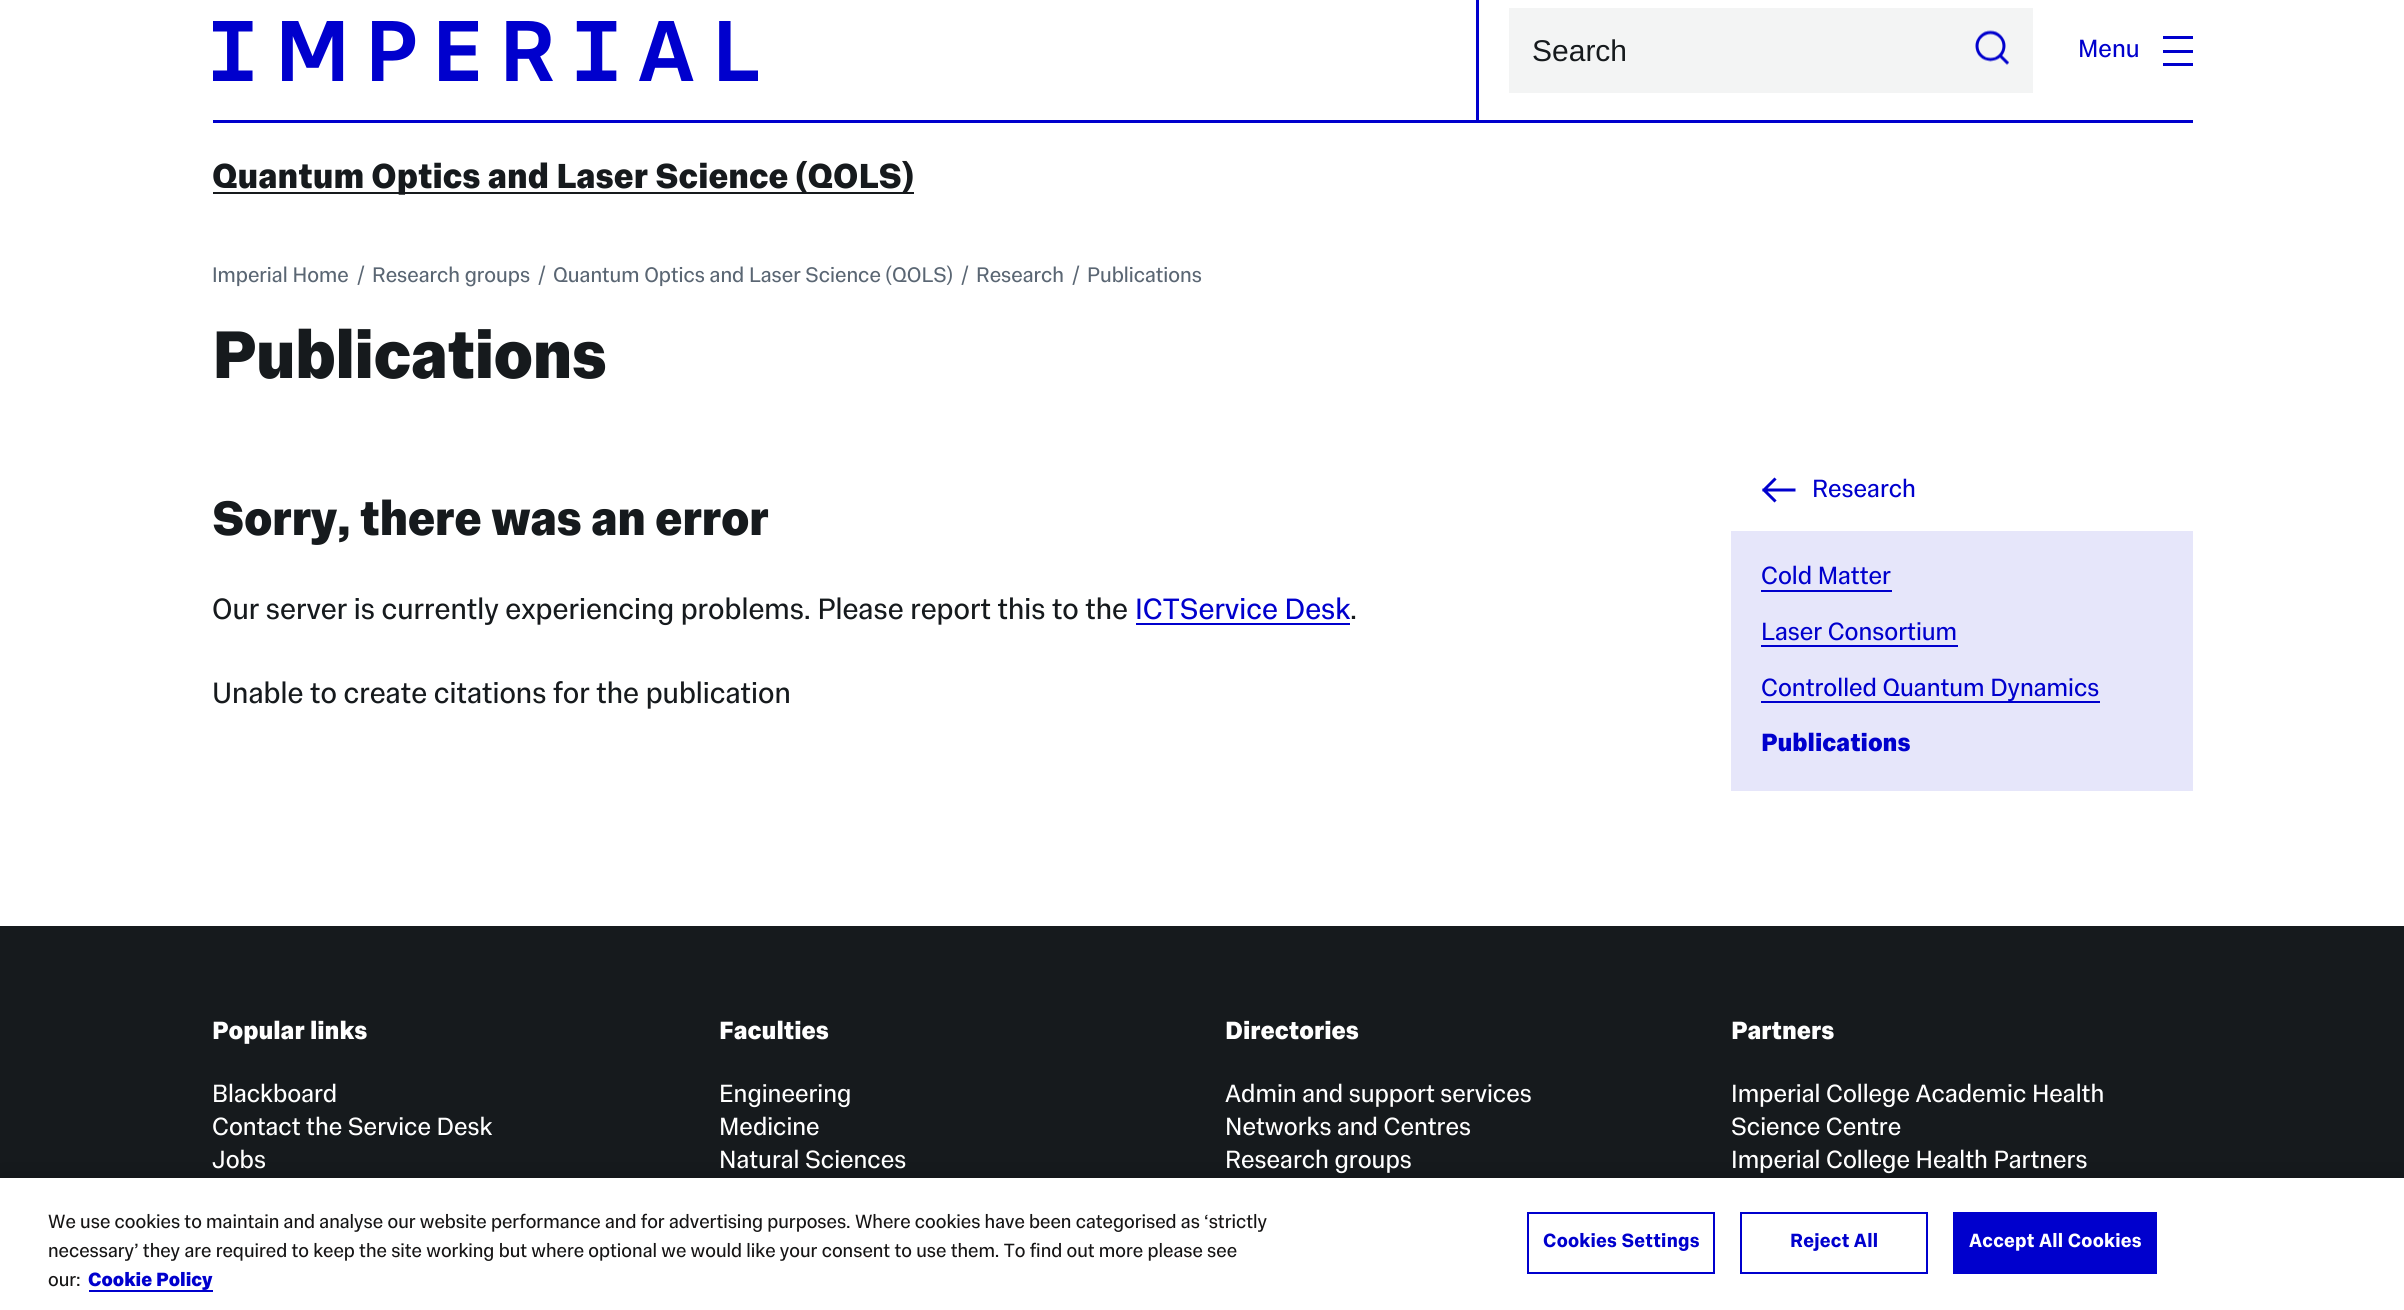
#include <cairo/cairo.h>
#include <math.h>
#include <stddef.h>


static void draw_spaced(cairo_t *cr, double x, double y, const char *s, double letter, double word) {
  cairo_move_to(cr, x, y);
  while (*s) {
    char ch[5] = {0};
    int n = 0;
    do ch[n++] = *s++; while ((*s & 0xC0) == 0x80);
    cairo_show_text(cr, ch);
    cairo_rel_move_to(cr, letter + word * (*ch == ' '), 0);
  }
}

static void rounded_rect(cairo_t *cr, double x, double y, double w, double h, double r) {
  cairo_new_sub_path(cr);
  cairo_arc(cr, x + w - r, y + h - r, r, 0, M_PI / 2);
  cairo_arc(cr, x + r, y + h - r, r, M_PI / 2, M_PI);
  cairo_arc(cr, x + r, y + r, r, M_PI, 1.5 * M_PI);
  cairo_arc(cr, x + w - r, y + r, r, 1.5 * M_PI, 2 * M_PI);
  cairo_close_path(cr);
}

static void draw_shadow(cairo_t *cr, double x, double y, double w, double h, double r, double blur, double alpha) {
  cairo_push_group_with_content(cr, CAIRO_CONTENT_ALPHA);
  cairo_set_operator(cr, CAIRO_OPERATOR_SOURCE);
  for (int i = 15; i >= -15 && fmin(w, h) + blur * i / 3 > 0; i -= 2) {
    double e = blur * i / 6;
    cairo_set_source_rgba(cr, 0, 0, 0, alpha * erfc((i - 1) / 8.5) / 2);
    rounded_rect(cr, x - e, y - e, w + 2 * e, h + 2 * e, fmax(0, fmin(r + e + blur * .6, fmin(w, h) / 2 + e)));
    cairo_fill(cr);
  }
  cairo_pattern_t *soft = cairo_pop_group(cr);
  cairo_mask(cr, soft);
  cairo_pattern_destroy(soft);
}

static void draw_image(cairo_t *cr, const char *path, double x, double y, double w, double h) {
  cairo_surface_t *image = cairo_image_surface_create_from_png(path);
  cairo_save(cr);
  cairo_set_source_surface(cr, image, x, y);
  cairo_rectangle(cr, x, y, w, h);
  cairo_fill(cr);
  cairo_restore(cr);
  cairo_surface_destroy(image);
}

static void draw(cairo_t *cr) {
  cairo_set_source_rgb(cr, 1, 1, 1);
  cairo_paint(cr);
  draw_image(cr, "images/1.png", 213, 21, 545, 60);
  cairo_set_source_rgb(cr, 0, 0, 205 / 255.0);
  cairo_rectangle(cr, 1476, 0, 3, 123);
  cairo_fill(cr);
  cairo_set_source_rgb(cr, 243 / 255.0, 244 / 255.0, 244 / 255.0);
  cairo_rectangle(cr, 1509, 8, 524, 85);
  cairo_fill(cr);
  draw_image(cr, "images/2.png", 1975, 30, 34, 35);
  cairo_set_source_rgb(cr, 0, 0, 205 / 255.0);
  cairo_rectangle(cr, 2163, 36, 30, 3);
  cairo_fill(cr);
  cairo_rectangle(cr, 2163, 50, 30, 3);
  cairo_fill(cr);
  cairo_rectangle(cr, 2163, 63, 30, 3);
  cairo_fill(cr);
  cairo_rectangle(cr, 213, 120, 1980, 3);
  cairo_fill(cr);
  cairo_set_source_rgb(cr, 22 / 255.0, 26 / 255.0, 29 / 255.0);
  cairo_rectangle(cr, 213, 192, 701, 2);
  cairo_fill(cr);
  cairo_set_source_rgb(cr, 0, 0, 205 / 255.0);
  cairo_rectangle(cr, 1136, 623, 214, 2);
  cairo_fill(cr);
  draw_image(cr, "images/3.png", 1762, 477, 34, 26);
  cairo_set_source_rgb(cr, 230 / 255.0, 230 / 255.0, 250 / 255.0);
  cairo_rectangle(cr, 1731, 531, 462, 260);
  cairo_fill(cr);
  cairo_set_source_rgb(cr, 0, 0, 205 / 255.0);
  cairo_rectangle(cr, 1761, 590, 131, 2);
  cairo_fill(cr);
  cairo_rectangle(cr, 1761, 645, 197, 2);
  cairo_fill(cr);
  cairo_rectangle(cr, 1761, 701, 339, 2);
  cairo_fill(cr);
  cairo_set_source_rgb(cr, 22 / 255.0, 26 / 255.0, 29 / 255.0);
  cairo_rectangle(cr, 0, 926, 2404, 252);
  cairo_fill(cr);
  cairo_set_source_rgb(cr, 0, 0, 0);
  draw_shadow(cr, 0, 1178, 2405, 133, 0, 13.5, 0.2);
  cairo_set_source_rgb(cr, 1, 1, 1);
  cairo_rectangle(cr, 0, 1178, 2404, 132);
  cairo_fill(cr);
  cairo_set_source_rgb(cr, 0, 0, 205 / 255.0);
  cairo_rectangle(cr, 89, 1290, 124, 2);
  cairo_fill(cr);
  cairo_rectangle(cr, 1528, 1213, 186, 60);
  cairo_stroke(cr);
  cairo_rectangle(cr, 1741, 1213, 186, 60);
  cairo_stroke(cr);
  cairo_rectangle(cr, 1953, 1212, 204, 62);
  cairo_fill(cr);
  cairo_select_font_face(cr, "Liberation Sans", CAIRO_FONT_SLANT_NORMAL, CAIRO_FONT_WEIGHT_NORMAL);
  cairo_set_font_size(cr, 30);
  cairo_set_source_rgb(cr, 22 / 255.0, 26 / 255.0, 29 / 255.0);
  cairo_move_to(cr, 1532, 61);
  cairo_show_text(cr, "Search");
  cairo_select_font_face(cr, "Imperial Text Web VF", CAIRO_FONT_SLANT_NORMAL, CAIRO_FONT_WEIGHT_NORMAL);
  cairo_set_font_size(cr, 25.4);
  cairo_set_source_rgb(cr, 0, 0, 205 / 255.0);
  cairo_move_to(cr, 2078, 57);
  cairo_show_text(cr, "Menu");
  cairo_select_font_face(cr, "Imperial Text Web VF", CAIRO_FONT_SLANT_NORMAL, CAIRO_FONT_WEIGHT_BOLD);
  cairo_set_font_size(cr, 35.4);
  cairo_set_source_rgb(cr, 22 / 255.0, 26 / 255.0, 29 / 255.0);
  cairo_move_to(cr, 212, 188);
  cairo_show_text(cr, "Quantum Optics and Laser Science (QOLS)");
  cairo_select_font_face(cr, "Imperial Text Web VF", CAIRO_FONT_SLANT_NORMAL, CAIRO_FONT_WEIGHT_NORMAL);
  cairo_set_font_size(cr, 21.5);
  cairo_set_source_rgb(cr, 90 / 255.0, 102 / 255.0, 115 / 255.0);
  cairo_move_to(cr, 212, 282);
  cairo_show_text(cr, "Imperial Home");
  cairo_move_to(cr, 357, 282);
  cairo_show_text(cr, "/");
  cairo_move_to(cr, 372, 282);
  cairo_show_text(cr, "Research groups");
  cairo_move_to(cr, 538, 282);
  cairo_show_text(cr, "/");
  cairo_move_to(cr, 553, 282);
  cairo_show_text(cr, "Quantum Optics and Laser Science (QOLS)");
  cairo_move_to(cr, 961, 282);
  cairo_show_text(cr, "/");
  cairo_move_to(cr, 976, 282);
  cairo_show_text(cr, "Research");
  cairo_move_to(cr, 1072, 282);
  cairo_show_text(cr, "/");
  cairo_move_to(cr, 1087, 282);
  cairo_show_text(cr, "Publications");
  cairo_select_font_face(cr, "Imperial Text Web VF", CAIRO_FONT_SLANT_NORMAL, CAIRO_FONT_WEIGHT_BOLD);
  cairo_set_font_size(cr, 68.5);
  cairo_set_source_rgb(cr, 22 / 255.0, 26 / 255.0, 29 / 255.0);
  draw_spaced(cr, 212, 378, "Publications", -0.75, 0);
  cairo_set_font_size(cr, 49.25);
  draw_spaced(cr, 212, 535, "Sorry, there was an error", -0.5, 0);
  cairo_select_font_face(cr, "Imperial Text Web VF", CAIRO_FONT_SLANT_NORMAL, CAIRO_FONT_WEIGHT_NORMAL);
  cairo_set_font_size(cr, 30);
  cairo_move_to(cr, 212, 619);
  cairo_show_text(cr, "Our server is currently experiencing problems. Please report this to the");
  cairo_set_source_rgb(cr, 0, 0, 205 / 255.0);
  cairo_move_to(cr, 1135, 619);
  cairo_show_text(cr, "ICTService Desk");
  cairo_set_source_rgb(cr, 22 / 255.0, 26 / 255.0, 29 / 255.0);
  cairo_move_to(cr, 1350, 619);
  cairo_show_text(cr, ".");
  cairo_move_to(cr, 212, 703);
  cairo_show_text(cr, "Unable to create citations for the publication");
  cairo_set_font_size(cr, 25.4);
  cairo_set_source_rgb(cr, 0, 0, 205 / 255.0);
  cairo_move_to(cr, 1812, 497);
  cairo_show_text(cr, "Research");
  cairo_move_to(cr, 1761, 584);
  cairo_show_text(cr, "Cold Matter");
  cairo_move_to(cr, 1761, 640);
  cairo_show_text(cr, "Laser Consortium");
  cairo_move_to(cr, 1761, 696);
  cairo_show_text(cr, "Controlled Quantum Dynamics");
  cairo_select_font_face(cr, "Imperial Text Web VF", CAIRO_FONT_SLANT_NORMAL, CAIRO_FONT_WEIGHT_BOLD);
  cairo_move_to(cr, 1761, 751);
  cairo_show_text(cr, "Publications");
  cairo_set_source_rgb(cr, 1, 1, 1);
  cairo_move_to(cr, 212, 1039);
  cairo_show_text(cr, "Popular links");
  cairo_select_font_face(cr, "Imperial Text Web VF", CAIRO_FONT_SLANT_NORMAL, CAIRO_FONT_WEIGHT_NORMAL);
  cairo_move_to(cr, 212, 1102);
  cairo_show_text(cr, "Blackboard");
  cairo_move_to(cr, 212, 1135);
  cairo_show_text(cr, "Contact the Service Desk");
  cairo_move_to(cr, 212, 1168);
  cairo_show_text(cr, "Jobs");
  cairo_select_font_face(cr, "Imperial Text Web VF", CAIRO_FONT_SLANT_NORMAL, CAIRO_FONT_WEIGHT_BOLD);
  cairo_move_to(cr, 719, 1039);
  cairo_show_text(cr, "Faculties");
  cairo_select_font_face(cr, "Imperial Text Web VF", CAIRO_FONT_SLANT_NORMAL, CAIRO_FONT_WEIGHT_NORMAL);
  cairo_move_to(cr, 719, 1102);
  cairo_show_text(cr, "Engineering");
  cairo_move_to(cr, 719, 1135);
  cairo_show_text(cr, "Medicine");
  cairo_move_to(cr, 719, 1168);
  cairo_show_text(cr, "Natural Sciences");
  cairo_select_font_face(cr, "Imperial Text Web VF", CAIRO_FONT_SLANT_NORMAL, CAIRO_FONT_WEIGHT_BOLD);
  cairo_move_to(cr, 1225, 1039);
  cairo_show_text(cr, "Directories");
  cairo_select_font_face(cr, "Imperial Text Web VF", CAIRO_FONT_SLANT_NORMAL, CAIRO_FONT_WEIGHT_NORMAL);
  cairo_move_to(cr, 1225, 1102);
  cairo_show_text(cr, "Admin and support services");
  cairo_move_to(cr, 1225, 1135);
  cairo_show_text(cr, "Networks and Centres");
  cairo_move_to(cr, 1225, 1168);
  cairo_show_text(cr, "Research groups");
  cairo_select_font_face(cr, "Imperial Text Web VF", CAIRO_FONT_SLANT_NORMAL, CAIRO_FONT_WEIGHT_BOLD);
  cairo_move_to(cr, 1731, 1039);
  cairo_show_text(cr, "Partners");
  cairo_select_font_face(cr, "Imperial Text Web VF", CAIRO_FONT_SLANT_NORMAL, CAIRO_FONT_WEIGHT_NORMAL);
  cairo_move_to(cr, 1731, 1102);
  cairo_show_text(cr, "Imperial College Academic Health");
  cairo_move_to(cr, 1731, 1135);
  cairo_show_text(cr, "Science Centre");
  cairo_move_to(cr, 1731, 1168);
  cairo_show_text(cr, "Imperial College Health Partners");
  cairo_set_font_size(cr, 19.5);
  cairo_set_source_rgb(cr, 22 / 255.0, 21 / 255.0, 21 / 255.0);
  cairo_move_to(cr, 48, 1228);
  cairo_show_text(cr, "We use cookies to maintain and analyse our website performance and for advertising purposes. Where cookies have been categorised as ‘strictly");
  cairo_move_to(cr, 48, 1257);
  cairo_show_text(cr, "necessary’ they are required to keep the site working but where optional we would like your consent to use them. To find out more please see");
  cairo_move_to(cr, 48, 1286);
  cairo_show_text(cr, "our:");
  cairo_select_font_face(cr, "Imperial Text Web VF", CAIRO_FONT_SLANT_NORMAL, CAIRO_FONT_WEIGHT_BOLD);
  cairo_set_source_rgb(cr, 0, 0, 205 / 255.0);
  cairo_move_to(cr, 88, 1286);
  cairo_show_text(cr, "Cookie Policy");
  cairo_select_font_face(cr, "Imperial Text Web VF SemiBold", CAIRO_FONT_SLANT_NORMAL, CAIRO_FONT_WEIGHT_NORMAL);
  draw_spaced(cr, 1543, 1247, "Cookies Settings", 0.25, 0);
  draw_spaced(cr, 1790, 1247, "Reject All", 0.25, 0);
  cairo_set_source_rgb(cr, 1, 1, 1);
  draw_spaced(cr, 1969, 1247, "Accept All Cookies", 0.25, 0);
}

int main(void) {
  cairo_surface_t *surface = cairo_image_surface_create(CAIRO_FORMAT_RGB24, 2404, 1310);
  cairo_t *cr = cairo_create(surface);
  cairo_font_options_t *options = cairo_font_options_create();
  cairo_font_options_set_hint_metrics(options, CAIRO_HINT_METRICS_OFF);
  cairo_font_options_set_hint_style(options, CAIRO_HINT_STYLE_NONE);
  cairo_set_font_options(cr, options);
  cairo_set_miter_limit(cr, 4);
  draw(cr);
  cairo_surface_write_to_png(surface, "out.png");
  cairo_font_options_destroy(options);
  cairo_destroy(cr);
  cairo_surface_destroy(surface);
  return 0;
}
